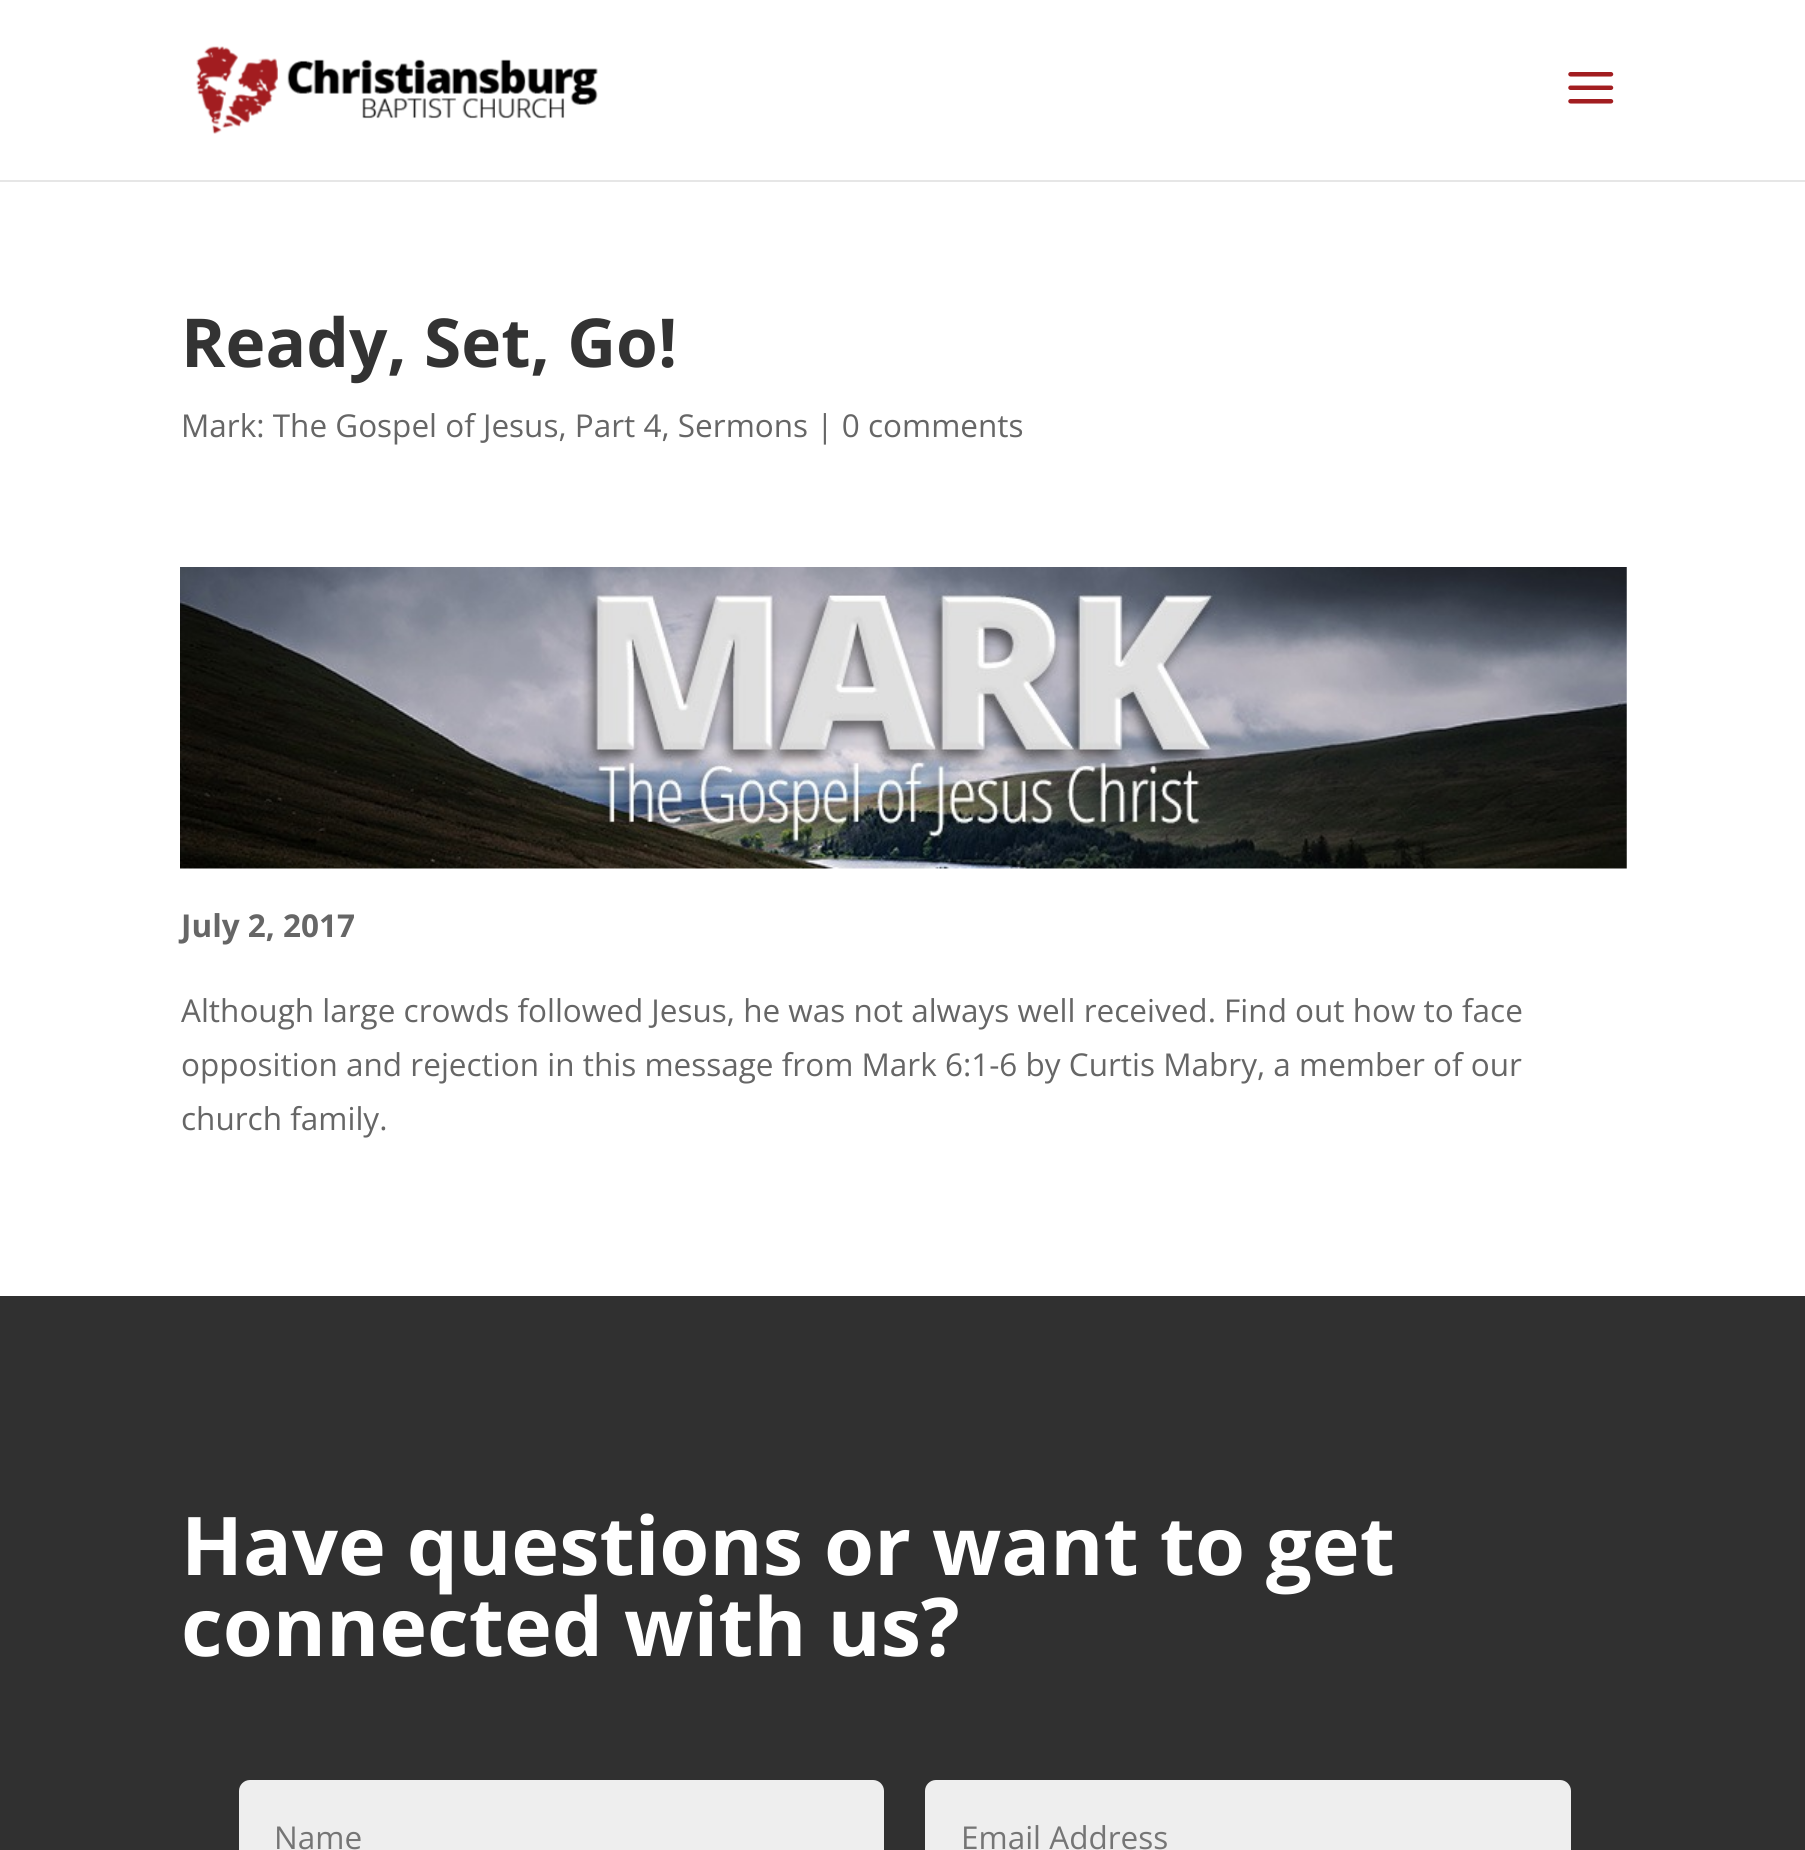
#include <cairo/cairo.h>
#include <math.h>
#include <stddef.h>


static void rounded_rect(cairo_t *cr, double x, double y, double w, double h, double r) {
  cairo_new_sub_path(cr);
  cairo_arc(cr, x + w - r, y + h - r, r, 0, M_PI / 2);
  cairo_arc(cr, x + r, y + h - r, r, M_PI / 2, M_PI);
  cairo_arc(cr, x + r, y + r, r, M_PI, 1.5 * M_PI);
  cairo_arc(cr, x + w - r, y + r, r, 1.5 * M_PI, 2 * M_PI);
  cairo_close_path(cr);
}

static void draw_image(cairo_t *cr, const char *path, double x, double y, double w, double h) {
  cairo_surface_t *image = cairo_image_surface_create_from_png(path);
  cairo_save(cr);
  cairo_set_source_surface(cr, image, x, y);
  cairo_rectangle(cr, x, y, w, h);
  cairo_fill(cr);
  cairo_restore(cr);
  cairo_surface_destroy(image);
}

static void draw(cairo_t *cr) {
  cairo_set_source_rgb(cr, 1, 1, 1);
  cairo_paint(cr);
  cairo_set_source_rgb(cr, 230 / 255.0, 230 / 255.0, 230 / 255.0);
  cairo_new_path(cr);
  cairo_move_to(cr, 0, 180);
  cairo_line_to(cr, 0, 182);
  cairo_line_to(cr, 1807, 182);
  cairo_line_to(cr, 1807, 2);
  cairo_line_to(cr, 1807, 180);
  cairo_close_path(cr);
  cairo_fill(cr);
  draw_image(cr, "images/1.png", 196, 46, 402, 88);
  draw_image(cr, "images/2.png", 1568, 72, 46, 32);
  draw_image(cr, "images/3.png", 180, 567, 1447, 302);
  cairo_set_source_rgb(cr, 48 / 255.0, 48 / 255.0, 48 / 255.0);
  cairo_rectangle(cr, 0, 1296, 1805, 554);
  cairo_fill(cr);
  cairo_set_source_rgb(cr, 238 / 255.0, 238 / 255.0, 238 / 255.0);
  rounded_rect(cr, 239, 1780, 645, 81, 11);
  cairo_fill(cr);
  rounded_rect(cr, 925, 1780, 646, 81, 11);
  cairo_fill(cr);
  cairo_select_font_face(cr, "Open Sans", CAIRO_FONT_SLANT_NORMAL, CAIRO_FONT_WEIGHT_BOLD);
  cairo_set_font_size(cr, 67.5);
  cairo_set_source_rgb(cr, 51 / 255.0, 51 / 255.0, 51 / 255.0);
  cairo_move_to(cr, 181, 367);
  cairo_show_text(cr, "Ready, Set, Go!");
  cairo_select_font_face(cr, "Open Sans", CAIRO_FONT_SLANT_NORMAL, CAIRO_FONT_WEIGHT_NORMAL);
  cairo_set_font_size(cr, 31.5);
  cairo_set_source_rgb(cr, 102 / 255.0, 102 / 255.0, 102 / 255.0);
  cairo_move_to(cr, 181, 437);
  cairo_show_text(cr, "Mark: The Gospel of Jesus, Part 4, Sermons | 0 comments");
  cairo_select_font_face(cr, "Open Sans", CAIRO_FONT_SLANT_NORMAL, CAIRO_FONT_WEIGHT_BOLD);
  cairo_move_to(cr, 181, 937);
  cairo_show_text(cr, "July 2, 2017");
  cairo_select_font_face(cr, "Open Sans", CAIRO_FONT_SLANT_NORMAL, CAIRO_FONT_WEIGHT_NORMAL);
  cairo_move_to(cr, 181, 1022);
  cairo_show_text(cr, "Although large crowds followed Jesus, he was not always well received. Find out how to face");
  cairo_move_to(cr, 181, 1076);
  cairo_show_text(cr, "opposition and rejection in this message from Mark 6:1-6 by Curtis Mabry, a member of our");
  cairo_move_to(cr, 181, 1130);
  cairo_show_text(cr, "church family.");
  cairo_select_font_face(cr, "Open Sans", CAIRO_FONT_SLANT_NORMAL, CAIRO_FONT_WEIGHT_BOLD);
  cairo_set_font_size(cr, 81);
  cairo_set_source_rgb(cr, 1, 1, 1);
  cairo_move_to(cr, 181, 1575);
  cairo_show_text(cr, "Have questions or want to get");
  cairo_move_to(cr, 181, 1656);
  cairo_show_text(cr, "connected with us?");
  cairo_select_font_face(cr, "Open Sans", CAIRO_FONT_SLANT_NORMAL, CAIRO_FONT_WEIGHT_NORMAL);
  cairo_set_font_size(cr, 31.5);
  cairo_set_source_rgb(cr, 117 / 255.0, 117 / 255.0, 117 / 255.0);
  cairo_move_to(cr, 274, 1849);
  cairo_show_text(cr, "Name");
  cairo_move_to(cr, 961, 1849);
  cairo_show_text(cr, "Email Address");
}

int main(void) {
  cairo_surface_t *surface = cairo_image_surface_create(CAIRO_FORMAT_RGB24, 1805, 1850);
  cairo_t *cr = cairo_create(surface);
  cairo_font_options_t *options = cairo_font_options_create();
  cairo_font_options_set_hint_metrics(options, CAIRO_HINT_METRICS_OFF);
  cairo_font_options_set_hint_style(options, CAIRO_HINT_STYLE_NONE);
  cairo_set_font_options(cr, options);
  cairo_set_miter_limit(cr, 4);
  draw(cr);
  cairo_surface_write_to_png(surface, "out.png");
  cairo_font_options_destroy(options);
  cairo_destroy(cr);
  cairo_surface_destroy(surface);
  return 0;
}
